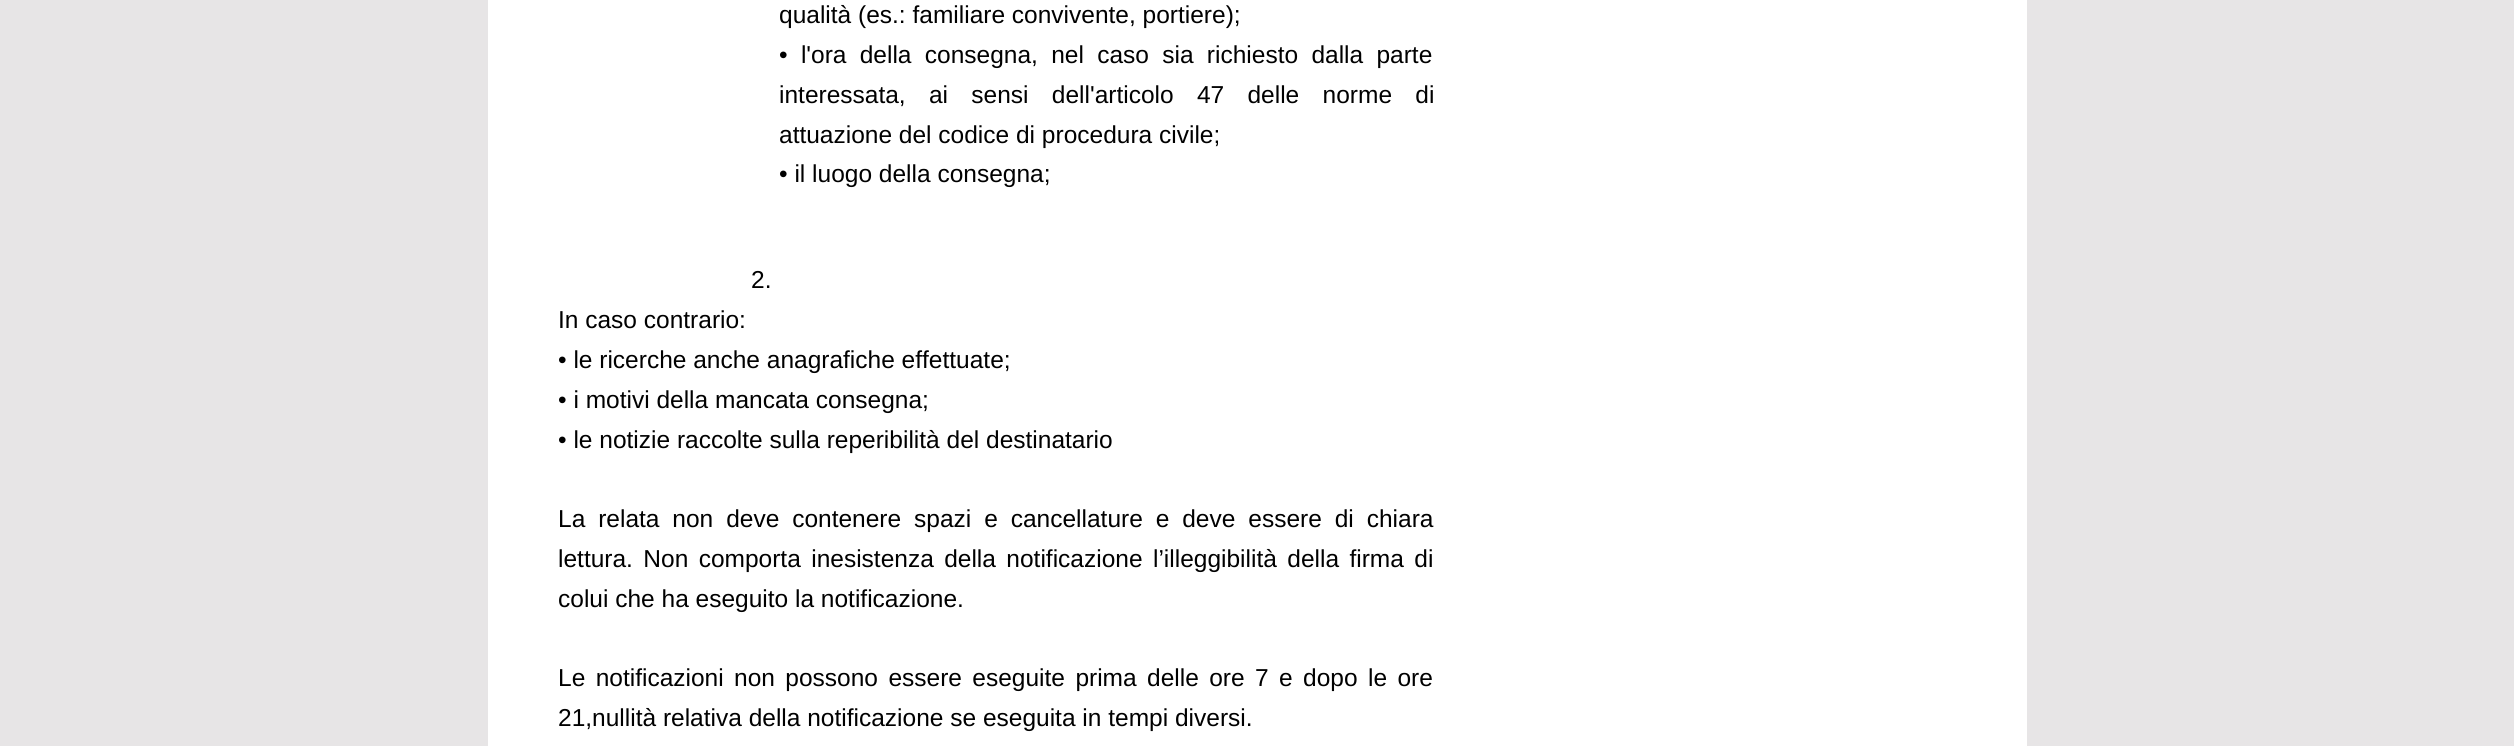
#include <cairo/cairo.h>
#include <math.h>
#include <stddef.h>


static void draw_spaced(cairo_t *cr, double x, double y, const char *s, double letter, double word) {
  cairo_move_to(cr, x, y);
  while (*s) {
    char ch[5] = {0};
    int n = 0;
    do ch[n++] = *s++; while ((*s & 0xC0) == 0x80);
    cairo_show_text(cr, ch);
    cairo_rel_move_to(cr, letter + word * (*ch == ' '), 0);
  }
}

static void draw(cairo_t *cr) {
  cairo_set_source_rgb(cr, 231 / 255.0, 229 / 255.0, 230 / 255.0);
  cairo_paint(cr);
  cairo_set_source_rgb(cr, 1, 1, 1);
  cairo_rectangle(cr, 488, 0, 1539, 746);
  cairo_fill(cr);
  cairo_select_font_face(cr, "Liberation Sans", CAIRO_FONT_SLANT_NORMAL, CAIRO_FONT_WEIGHT_NORMAL);
  cairo_set_font_size(cr, 24.5);
  cairo_set_source_rgb(cr, 0, 0, 0);
  cairo_move_to(cr, 779, 23);
  cairo_show_text(cr, "qualità (es.: familiare convivente, portiere);");
  draw_spaced(cr, 779, 63, "• l'ora della consegna, nel caso sia richiesto dalla parte", 0, 6.5);
  draw_spaced(cr, 779, 103, "interessata, ai sensi dell'articolo 47 delle norme di", 0, 16.5);
  cairo_move_to(cr, 779, 143);
  cairo_show_text(cr, "attuazione del codice di procedura civile;");
  cairo_move_to(cr, 779, 182);
  cairo_show_text(cr, "• il luogo della consegna;");
  cairo_move_to(cr, 751, 288);
  cairo_show_text(cr, "2.");
  cairo_move_to(cr, 558, 328);
  cairo_show_text(cr, "In caso contrario:");
  cairo_move_to(cr, 558, 368);
  cairo_show_text(cr, "• le ricerche anche anagrafiche effettuate;");
  cairo_move_to(cr, 558, 408);
  cairo_show_text(cr, "• i motivi della mancata consegna;");
  cairo_move_to(cr, 558, 448);
  cairo_show_text(cr, "• le notizie raccolte sulla reperibilità del destinatario");
  draw_spaced(cr, 558, 527, "La relata non deve contenere spazi e cancellature e deve essere di chiara", 0, 6.1);
  draw_spaced(cr, 558, 567, "lettura. Non comporta inesistenza della notificazione l’illeggibilità della firma di", 0, 3.6);
  cairo_move_to(cr, 558, 607);
  cairo_show_text(cr, "colui che ha eseguito la notificazione.");
  draw_spaced(cr, 558, 686, "Le notificazioni non possono essere eseguite prima delle ore 7 e dopo le ore", 0, 3.6);
  cairo_move_to(cr, 558, 726);
  cairo_show_text(cr, "21,nullità relativa della notificazione se eseguita in tempi diversi.");
}

int main(void) {
  cairo_surface_t *surface = cairo_image_surface_create(CAIRO_FORMAT_RGB24, 2514, 746);
  cairo_t *cr = cairo_create(surface);
  cairo_font_options_t *options = cairo_font_options_create();
  cairo_font_options_set_hint_metrics(options, CAIRO_HINT_METRICS_OFF);
  cairo_font_options_set_hint_style(options, CAIRO_HINT_STYLE_NONE);
  cairo_set_font_options(cr, options);
  cairo_set_miter_limit(cr, 4);
  draw(cr);
  cairo_surface_write_to_png(surface, "out.png");
  cairo_font_options_destroy(options);
  cairo_destroy(cr);
  cairo_surface_destroy(surface);
  return 0;
}
